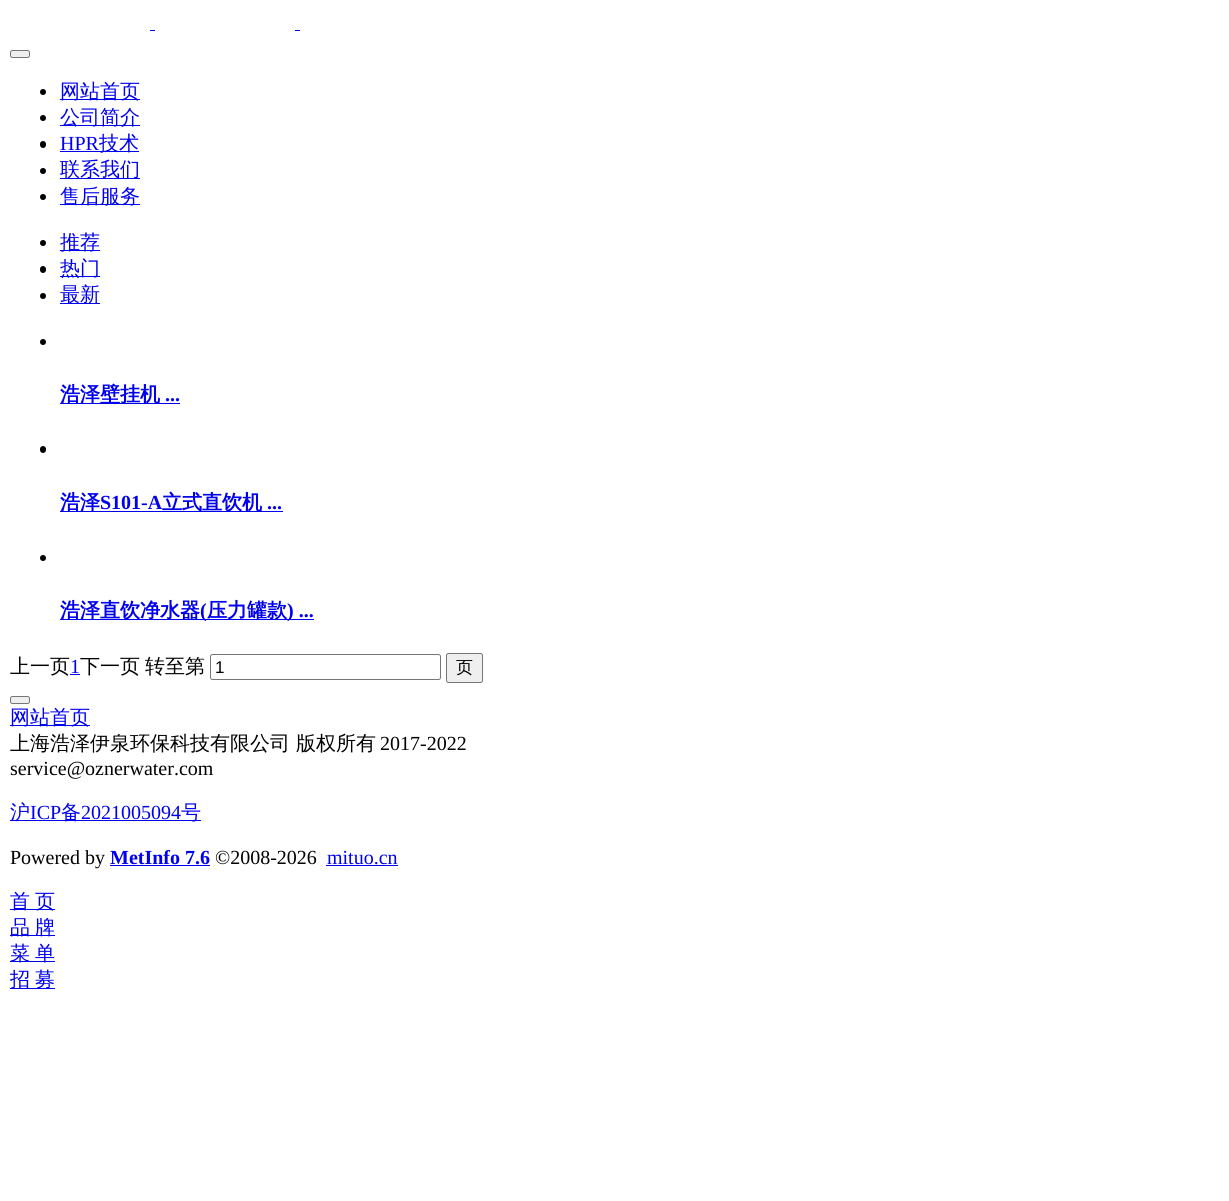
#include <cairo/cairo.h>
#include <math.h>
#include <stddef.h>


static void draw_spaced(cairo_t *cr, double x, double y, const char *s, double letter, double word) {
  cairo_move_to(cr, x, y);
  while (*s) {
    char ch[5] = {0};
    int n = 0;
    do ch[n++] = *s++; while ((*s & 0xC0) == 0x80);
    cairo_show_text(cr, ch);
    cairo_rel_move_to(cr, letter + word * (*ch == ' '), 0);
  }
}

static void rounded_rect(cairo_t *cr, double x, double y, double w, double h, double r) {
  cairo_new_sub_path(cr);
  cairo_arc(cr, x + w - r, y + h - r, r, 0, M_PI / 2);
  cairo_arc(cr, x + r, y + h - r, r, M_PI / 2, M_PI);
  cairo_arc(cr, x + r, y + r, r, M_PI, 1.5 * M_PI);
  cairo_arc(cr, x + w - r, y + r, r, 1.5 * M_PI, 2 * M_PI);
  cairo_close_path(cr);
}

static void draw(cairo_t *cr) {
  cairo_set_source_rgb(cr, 1, 1, 1);
  cairo_paint(cr);
  cairo_set_source_rgb(cr, 0, 0, 238 / 255.0);
  cairo_rectangle(cr, 150, 30, 5, 1);
  cairo_fill(cr);
  cairo_rectangle(cr, 295, 30, 5, 1);
  cairo_fill(cr);
  cairo_set_source_rgb(cr, 239 / 255.0, 239 / 255.0, 239 / 255.0);
  rounded_rect(cr, 10.5, 50.5, 19, 7, 2);
  cairo_fill_preserve(cr);
  cairo_set_source_rgb(cr, 118 / 255.0, 118 / 255.0, 118 / 255.0);
  cairo_set_line_width(cr, 1);
  cairo_stroke(cr);
  cairo_set_source_rgb(cr, 0, 0, 0);
  cairo_arc(cr, 43, 92, 3, 0, 2 * M_PI);
  cairo_fill(cr);
  cairo_set_source_rgb(cr, 0, 0, 238 / 255.0);
  cairo_rectangle(cr, 60, 99, 80, 1);
  cairo_fill(cr);
  cairo_set_source_rgb(cr, 0, 0, 0);
  cairo_arc(cr, 43, 118, 3, 0, 2 * M_PI);
  cairo_fill(cr);
  cairo_set_source_rgb(cr, 0, 0, 238 / 255.0);
  cairo_rectangle(cr, 60, 125, 80, 1);
  cairo_fill(cr);
  cairo_set_source_rgb(cr, 0, 0, 0);
  rounded_rect(cr, 40, 141, 6, 7, 3);
  cairo_fill(cr);
  cairo_set_source_rgb(cr, 0, 0, 238 / 255.0);
  cairo_rectangle(cr, 60, 151, 79, 1);
  cairo_fill(cr);
  cairo_set_source_rgb(cr, 0, 0, 0);
  cairo_arc(cr, 43, 171, 3, 0, 2 * M_PI);
  cairo_fill(cr);
  cairo_set_source_rgb(cr, 0, 0, 238 / 255.0);
  cairo_rectangle(cr, 60, 178, 80, 1);
  cairo_fill(cr);
  cairo_set_source_rgb(cr, 0, 0, 0);
  cairo_arc(cr, 43, 197, 3, 0, 2 * M_PI);
  cairo_fill(cr);
  cairo_set_source_rgb(cr, 0, 0, 238 / 255.0);
  cairo_rectangle(cr, 60, 204, 80, 1);
  cairo_fill(cr);
  cairo_set_source_rgb(cr, 0, 0, 0);
  cairo_arc(cr, 43, 243, 3, 0, 2 * M_PI);
  cairo_fill(cr);
  cairo_set_source_rgb(cr, 0, 0, 238 / 255.0);
  cairo_rectangle(cr, 60, 250, 40, 1);
  cairo_fill(cr);
  cairo_set_source_rgb(cr, 0, 0, 0);
  rounded_rect(cr, 40, 266, 6, 7, 3);
  cairo_fill(cr);
  cairo_set_source_rgb(cr, 0, 0, 238 / 255.0);
  cairo_rectangle(cr, 60, 276, 40, 1);
  cairo_fill(cr);
  cairo_set_source_rgb(cr, 0, 0, 0);
  cairo_arc(cr, 43, 296, 3, 0, 2 * M_PI);
  cairo_fill(cr);
  cairo_set_source_rgb(cr, 0, 0, 238 / 255.0);
  cairo_rectangle(cr, 60, 303, 40, 1);
  cairo_fill(cr);
  cairo_set_source_rgb(cr, 0, 0, 0);
  cairo_arc(cr, 43, 342, 3, 0, 2 * M_PI);
  cairo_fill(cr);
  cairo_set_source_rgb(cr, 0, 0, 238 / 255.0);
  cairo_rectangle(cr, 60, 403, 120, 1);
  cairo_fill(cr);
  cairo_set_source_rgb(cr, 0, 0, 0);
  rounded_rect(cr, 40, 446, 6, 7, 3);
  cairo_fill(cr);
  cairo_set_source_rgb(cr, 0, 0, 238 / 255.0);
  cairo_rectangle(cr, 60, 511, 223, 1);
  cairo_fill(cr);
  cairo_set_source_rgb(cr, 0, 0, 0);
  cairo_arc(cr, 43, 558, 3, 0, 2 * M_PI);
  cairo_fill(cr);
  cairo_set_source_rgb(cr, 0, 0, 238 / 255.0);
  cairo_rectangle(cr, 60, 619, 254, 1);
  cairo_fill(cr);
  cairo_rectangle(cr, 70, 674, 10, 1);
  cairo_fill(cr);
  rounded_rect(cr, 210.5, 654.5, 230, 25, 2);
  cairo_set_source_rgb(cr, 118 / 255.0, 118 / 255.0, 118 / 255.0);
  cairo_stroke(cr);
  cairo_set_source_rgb(cr, 239 / 255.0, 239 / 255.0, 239 / 255.0);
  rounded_rect(cr, 446.5, 653.5, 36, 29, 2);
  cairo_fill_preserve(cr);
  cairo_set_source_rgb(cr, 118 / 255.0, 118 / 255.0, 118 / 255.0);
  cairo_stroke(cr);
  cairo_set_source_rgb(cr, 239 / 255.0, 239 / 255.0, 239 / 255.0);
  rounded_rect(cr, 10.5, 696.5, 19, 7, 2);
  cairo_fill_preserve(cr);
  cairo_set_source_rgb(cr, 118 / 255.0, 118 / 255.0, 118 / 255.0);
  cairo_stroke(cr);
  cairo_set_source_rgb(cr, 0, 0, 238 / 255.0);
  cairo_rectangle(cr, 10, 725, 80, 1);
  cairo_fill(cr);
  cairo_rectangle(cr, 10, 820, 191, 1);
  cairo_fill(cr);
  cairo_rectangle(cr, 110, 865, 100, 1);
  cairo_fill(cr);
  cairo_rectangle(cr, 326, 865, 72, 1);
  cairo_fill(cr);
  cairo_rectangle(cr, 10, 909, 45, 1);
  cairo_fill(cr);
  cairo_rectangle(cr, 10, 935, 45, 1);
  cairo_fill(cr);
  cairo_rectangle(cr, 10, 961, 45, 1);
  cairo_fill(cr);
  cairo_rectangle(cr, 10, 988, 45, 1);
  cairo_fill(cr);
  cairo_select_font_face(cr, "WenQuanYi Zen Hei Medium", CAIRO_FONT_SLANT_NORMAL, CAIRO_FONT_WEIGHT_NORMAL);
  cairo_set_font_size(cr, 20);
  cairo_move_to(cr, 60, 98);
  cairo_show_text(cr, "网站首页");
  cairo_move_to(cr, 60, 124);
  cairo_show_text(cr, "公司简介");
  cairo_select_font_face(cr, "Liberation Serif", CAIRO_FONT_SLANT_NORMAL, CAIRO_FONT_WEIGHT_NORMAL);
  cairo_move_to(cr, 60, 150);
  cairo_show_text(cr, "HPR");
  cairo_select_font_face(cr, "WenQuanYi Zen Hei Medium", CAIRO_FONT_SLANT_NORMAL, CAIRO_FONT_WEIGHT_NORMAL);
  cairo_move_to(cr, 99, 150);
  cairo_show_text(cr, "技术");
  cairo_move_to(cr, 60, 176);
  cairo_show_text(cr, "联系我们");
  cairo_move_to(cr, 60, 203);
  cairo_show_text(cr, "售后服务");
  cairo_move_to(cr, 60, 249);
  cairo_show_text(cr, "推荐");
  cairo_move_to(cr, 60, 275);
  cairo_show_text(cr, "热门");
  cairo_move_to(cr, 60, 301);
  cairo_show_text(cr, "最新");
  cairo_select_font_face(cr, "WenQuanYi Zen Hei", CAIRO_FONT_SLANT_NORMAL, CAIRO_FONT_WEIGHT_BOLD);
  cairo_move_to(cr, 60, 401);
  cairo_show_text(cr, "浩泽壁挂机");
  cairo_select_font_face(cr, "Liberation Serif", CAIRO_FONT_SLANT_NORMAL, CAIRO_FONT_WEIGHT_BOLD);
  cairo_move_to(cr, 165, 401);
  cairo_show_text(cr, "...");
  cairo_select_font_face(cr, "WenQuanYi Zen Hei", CAIRO_FONT_SLANT_NORMAL, CAIRO_FONT_WEIGHT_BOLD);
  cairo_move_to(cr, 60, 509);
  cairo_show_text(cr, "浩泽");
  cairo_select_font_face(cr, "Liberation Serif", CAIRO_FONT_SLANT_NORMAL, CAIRO_FONT_WEIGHT_BOLD);
  cairo_move_to(cr, 100, 509);
  cairo_show_text(cr, "S101-A");
  cairo_select_font_face(cr, "WenQuanYi Zen Hei", CAIRO_FONT_SLANT_NORMAL, CAIRO_FONT_WEIGHT_BOLD);
  cairo_move_to(cr, 162, 509);
  cairo_show_text(cr, "立式直饮机");
  cairo_select_font_face(cr, "Liberation Serif", CAIRO_FONT_SLANT_NORMAL, CAIRO_FONT_WEIGHT_BOLD);
  cairo_move_to(cr, 267, 509);
  cairo_show_text(cr, "...");
  cairo_select_font_face(cr, "WenQuanYi Zen Hei", CAIRO_FONT_SLANT_NORMAL, CAIRO_FONT_WEIGHT_BOLD);
  cairo_move_to(cr, 60, 617);
  cairo_show_text(cr, "浩泽直饮净水器");
  cairo_select_font_face(cr, "Liberation Serif", CAIRO_FONT_SLANT_NORMAL, CAIRO_FONT_WEIGHT_BOLD);
  cairo_move_to(cr, 200, 617);
  cairo_show_text(cr, "(");
  cairo_select_font_face(cr, "WenQuanYi Zen Hei", CAIRO_FONT_SLANT_NORMAL, CAIRO_FONT_WEIGHT_BOLD);
  cairo_move_to(cr, 207, 617);
  cairo_show_text(cr, "压力罐款");
  cairo_select_font_face(cr, "Liberation Serif", CAIRO_FONT_SLANT_NORMAL, CAIRO_FONT_WEIGHT_BOLD);
  cairo_move_to(cr, 287, 617);
  cairo_show_text(cr, ") ...");
  cairo_select_font_face(cr, "WenQuanYi Zen Hei Medium", CAIRO_FONT_SLANT_NORMAL, CAIRO_FONT_WEIGHT_NORMAL);
  cairo_set_source_rgb(cr, 0, 0, 0);
  cairo_move_to(cr, 10, 673);
  cairo_show_text(cr, "上一页");
  cairo_select_font_face(cr, "Liberation Serif", CAIRO_FONT_SLANT_NORMAL, CAIRO_FONT_WEIGHT_NORMAL);
  cairo_set_source_rgb(cr, 0, 0, 238 / 255.0);
  cairo_move_to(cr, 70, 673);
  cairo_show_text(cr, "1");
  cairo_select_font_face(cr, "WenQuanYi Zen Hei Medium", CAIRO_FONT_SLANT_NORMAL, CAIRO_FONT_WEIGHT_NORMAL);
  cairo_set_source_rgb(cr, 0, 0, 0);
  cairo_move_to(cr, 80, 673);
  cairo_show_text(cr, "下一页");
  cairo_move_to(cr, 145, 673);
  cairo_show_text(cr, "转至第");
  cairo_select_font_face(cr, "Liberation Sans", CAIRO_FONT_SLANT_NORMAL, CAIRO_FONT_WEIGHT_NORMAL);
  cairo_set_font_size(cr, 17);
  cairo_move_to(cr, 215, 673);
  cairo_show_text(cr, "1");
  cairo_select_font_face(cr, "WenQuanYi Zen Hei Medium", CAIRO_FONT_SLANT_NORMAL, CAIRO_FONT_WEIGHT_NORMAL);
  cairo_move_to(cr, 456, 673);
  cairo_show_text(cr, "页");
  cairo_set_font_size(cr, 20);
  cairo_set_source_rgb(cr, 0, 0, 238 / 255.0);
  cairo_move_to(cr, 10, 724);
  cairo_show_text(cr, "网站首页");
  cairo_set_source_rgb(cr, 0, 0, 0);
  cairo_move_to(cr, 10, 750);
  cairo_show_text(cr, "上海浩泽伊泉环保科技有限公司 版权所有");
  cairo_select_font_face(cr, "Liberation Serif", CAIRO_FONT_SLANT_NORMAL, CAIRO_FONT_WEIGHT_NORMAL);
  cairo_move_to(cr, 380, 750);
  cairo_show_text(cr, "2017-2022");
  cairo_move_to(cr, 10, 775);
  cairo_show_text(cr, "service@oznerwater.com");
  cairo_select_font_face(cr, "WenQuanYi Zen Hei Medium", CAIRO_FONT_SLANT_NORMAL, CAIRO_FONT_WEIGHT_NORMAL);
  cairo_set_source_rgb(cr, 0, 0, 238 / 255.0);
  cairo_move_to(cr, 10, 819);
  cairo_show_text(cr, "沪");
  cairo_select_font_face(cr, "Liberation Serif", CAIRO_FONT_SLANT_NORMAL, CAIRO_FONT_WEIGHT_NORMAL);
  cairo_move_to(cr, 30, 819);
  cairo_show_text(cr, "ICP");
  cairo_select_font_face(cr, "WenQuanYi Zen Hei Medium", CAIRO_FONT_SLANT_NORMAL, CAIRO_FONT_WEIGHT_NORMAL);
  cairo_move_to(cr, 61, 819);
  cairo_show_text(cr, "备");
  cairo_select_font_face(cr, "Liberation Serif", CAIRO_FONT_SLANT_NORMAL, CAIRO_FONT_WEIGHT_NORMAL);
  cairo_move_to(cr, 81, 819);
  cairo_show_text(cr, "2021005094");
  cairo_select_font_face(cr, "WenQuanYi Zen Hei Medium", CAIRO_FONT_SLANT_NORMAL, CAIRO_FONT_WEIGHT_NORMAL);
  cairo_move_to(cr, 181, 819);
  cairo_show_text(cr, "号");
  cairo_select_font_face(cr, "Liberation Serif", CAIRO_FONT_SLANT_NORMAL, CAIRO_FONT_WEIGHT_NORMAL);
  cairo_set_source_rgb(cr, 0, 0, 0);
  cairo_move_to(cr, 10, 864);
  cairo_show_text(cr, "Powered by");
  cairo_select_font_face(cr, "Liberation Serif", CAIRO_FONT_SLANT_NORMAL, CAIRO_FONT_WEIGHT_BOLD);
  cairo_set_source_rgb(cr, 0, 0, 238 / 255.0);
  cairo_move_to(cr, 110, 864);
  cairo_show_text(cr, "MetInfo 7.6");
  cairo_select_font_face(cr, "Liberation Serif", CAIRO_FONT_SLANT_NORMAL, CAIRO_FONT_WEIGHT_NORMAL);
  cairo_set_source_rgb(cr, 0, 0, 0);
  cairo_move_to(cr, 215, 864);
  cairo_show_text(cr, "©2008-2026");
  cairo_set_source_rgb(cr, 0, 0, 238 / 255.0);
  cairo_move_to(cr, 327, 864);
  cairo_show_text(cr, "mituo.cn");
  cairo_select_font_face(cr, "WenQuanYi Zen Hei Medium", CAIRO_FONT_SLANT_NORMAL, CAIRO_FONT_WEIGHT_NORMAL);
  draw_spaced(cr, 10, 908, "首 页", 0, -1);
  draw_spaced(cr, 10, 934, "品 牌", 0, -1);
  draw_spaced(cr, 10, 960, "菜 单", 0, -1);
  draw_spaced(cr, 10, 986, "招 募", 0, -1);
}

int main(void) {
  cairo_surface_t *surface = cairo_image_surface_create(CAIRO_FORMAT_RGB24, 1229, 1201);
  cairo_t *cr = cairo_create(surface);
  cairo_font_options_t *options = cairo_font_options_create();
  cairo_font_options_set_hint_metrics(options, CAIRO_HINT_METRICS_OFF);
  cairo_font_options_set_hint_style(options, CAIRO_HINT_STYLE_NONE);
  cairo_set_font_options(cr, options);
  cairo_set_miter_limit(cr, 4);
  draw(cr);
  cairo_surface_write_to_png(surface, "out.png");
  cairo_font_options_destroy(options);
  cairo_destroy(cr);
  cairo_surface_destroy(surface);
  return 0;
}
